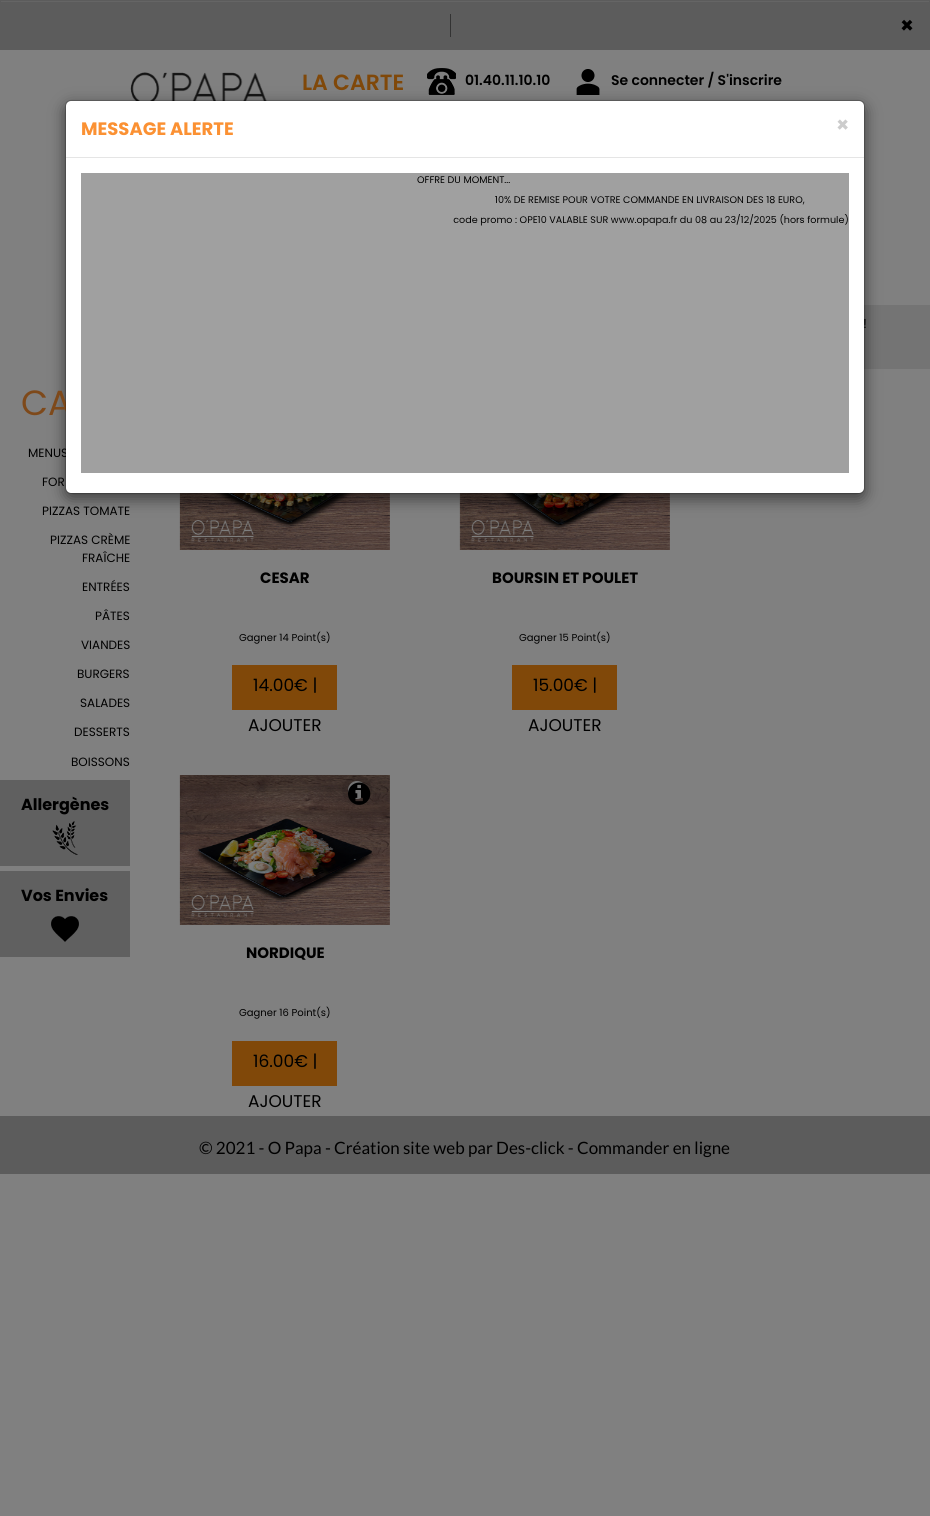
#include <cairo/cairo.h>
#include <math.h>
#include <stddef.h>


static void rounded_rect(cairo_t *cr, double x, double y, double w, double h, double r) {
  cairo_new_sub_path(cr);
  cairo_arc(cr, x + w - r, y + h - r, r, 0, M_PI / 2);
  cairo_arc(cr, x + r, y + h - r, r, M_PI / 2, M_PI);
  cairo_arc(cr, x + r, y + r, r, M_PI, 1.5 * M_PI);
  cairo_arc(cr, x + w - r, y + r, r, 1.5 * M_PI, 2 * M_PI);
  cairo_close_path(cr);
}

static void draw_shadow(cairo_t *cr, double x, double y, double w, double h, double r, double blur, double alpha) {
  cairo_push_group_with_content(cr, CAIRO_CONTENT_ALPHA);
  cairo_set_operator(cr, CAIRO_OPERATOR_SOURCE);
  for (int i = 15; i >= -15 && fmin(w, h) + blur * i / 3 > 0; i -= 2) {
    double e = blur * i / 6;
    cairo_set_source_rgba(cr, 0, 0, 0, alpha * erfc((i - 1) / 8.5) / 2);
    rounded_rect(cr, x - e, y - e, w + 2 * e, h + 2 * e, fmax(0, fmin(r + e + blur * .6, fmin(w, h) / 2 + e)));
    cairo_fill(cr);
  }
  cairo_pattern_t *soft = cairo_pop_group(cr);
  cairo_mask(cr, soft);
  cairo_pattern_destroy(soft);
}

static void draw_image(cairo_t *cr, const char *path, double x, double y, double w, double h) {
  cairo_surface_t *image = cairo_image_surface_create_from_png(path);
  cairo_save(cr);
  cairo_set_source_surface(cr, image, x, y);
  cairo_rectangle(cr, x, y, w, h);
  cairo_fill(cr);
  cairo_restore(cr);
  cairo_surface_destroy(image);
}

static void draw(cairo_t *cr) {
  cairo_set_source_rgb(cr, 128 / 255.0, 128 / 255.0, 128 / 255.0);
  cairo_paint(cr);
  cairo_set_source_rgb(cr, 92 / 255.0, 92 / 255.0, 92 / 255.0);
  cairo_rectangle(cr, 0, 0, 930, 50);
  cairo_fill(cr);
  cairo_set_source_rgb(cr, 101 / 255.0, 101 / 255.0, 101 / 255.0);
  cairo_rectangle(cr, 1, 1, 928, 1);
  cairo_fill(cr);
  cairo_set_source_rgb(cr, 51 / 255.0, 51 / 255.0, 51 / 255.0);
  cairo_rectangle(cr, 450, 14, 1, 23);
  cairo_fill(cr);
  draw_image(cr, "images/1.png", 130, 72, 137, 29);
  draw_image(cr, "images/2.png", 427, 68, 29, 27);
  draw_image(cr, "images/3.png", 576, 69, 24, 26);
  cairo_set_source_rgb(cr, 116 / 255.0, 116 / 255.0, 116 / 255.0);
  cairo_rectangle(cr, 864, 305, 66, 64);
  cairo_fill(cr);
  cairo_set_source_rgb(cr, 96 / 255.0, 96 / 255.0, 96 / 255.0);
  cairo_rectangle(cr, 0, 780, 130, 86);
  cairo_fill(cr);
  draw_image(cr, "images/4.png", 52, 821, 26, 34);
  cairo_rectangle(cr, 0, 871, 130, 86);
  cairo_fill(cr);
  draw_image(cr, "images/5.png", 51, 916, 28, 26);
  draw_image(cr, "images/6.png", 179, 493, 211, 57);
  cairo_set_source_rgb(cr, 128 / 255.0, 72 / 255.0, 9 / 255.0);
  cairo_rectangle(cr, 232, 665, 105, 45);
  cairo_fill(cr);
  draw_image(cr, "images/7.png", 459, 493, 211, 57);
  cairo_rectangle(cr, 512, 665, 105, 45);
  cairo_fill(cr);
  draw_image(cr, "images/8.png", 179, 775, 211, 150);
  cairo_set_source_rgb(cr, 128 / 255.0, 128 / 255.0, 128 / 255.0);
  cairo_arc(cr, 357, 790, 9, 0, 2 * M_PI);
  cairo_fill(cr);
  cairo_set_source_rgba(cr, 0, 0, 0, 0.1);
  cairo_arc(cr, 357, 790, 15, 0, 2 * M_PI);
  cairo_fill(cr);
  draw_image(cr, "images/9.png", 348, 782, 23, 23);
  cairo_set_source_rgb(cr, 128 / 255.0, 72 / 255.0, 9 / 255.0);
  cairo_rectangle(cr, 232, 1041, 105, 45);
  cairo_fill(cr);
  cairo_set_source_rgb(cr, 92 / 255.0, 92 / 255.0, 92 / 255.0);
  cairo_rectangle(cr, 0, 1116, 930, 58);
  cairo_fill(cr);
  cairo_set_source_rgb(cr, 0, 0, 0);
  draw_shadow(cr, 65, 105, 800, 394, 6, 7.5, 0.5);
  cairo_select_font_face(cr, "Poppins", CAIRO_FONT_SLANT_NORMAL, CAIRO_FONT_WEIGHT_BOLD);
  cairo_set_font_size(cr, 22);
  cairo_set_source_rgb(cr, 0, 0, 0);
  cairo_move_to(cr, 900, 33);
  cairo_show_text(cr, "×");
  cairo_select_font_face(cr, "Poppins SemiBold", CAIRO_FONT_SLANT_NORMAL, CAIRO_FONT_WEIGHT_NORMAL);
  cairo_set_source_rgb(cr, 128 / 255.0, 72 / 255.0, 9 / 255.0);
  cairo_move_to(cr, 302, 90);
  cairo_show_text(cr, "LA CARTE");
  cairo_set_font_size(cr, 14);
  cairo_set_source_rgb(cr, 0, 0, 0);
  cairo_move_to(cr, 465, 85);
  cairo_show_text(cr, "01.40.11.10.10");
  cairo_move_to(cr, 611, 85);
  cairo_show_text(cr, "Se connecter / S'inscrire");
  cairo_select_font_face(cr, "Poppins", CAIRO_FONT_SLANT_NORMAL, CAIRO_FONT_WEIGHT_NORMAL);
  cairo_set_font_size(cr, 13);
  cairo_move_to(cr, 863, 328);
  cairo_show_text(cr, "!");
  cairo_set_font_size(cr, 35);
  cairo_set_source_rgb(cr, 126 / 255.0, 73 / 255.0, 26 / 255.0);
  cairo_move_to(cr, 21, 415);
  cairo_show_text(cr, "CA");
  cairo_set_font_size(cr, 12);
  cairo_set_source_rgb(cr, 0, 0, 0);
  cairo_move_to(cr, 28, 457);
  cairo_show_text(cr, "MENUS");
  cairo_move_to(cr, 42, 486);
  cairo_show_text(cr, "FOR");
  cairo_move_to(cr, 42, 515);
  cairo_show_text(cr, "PIZZAS TOMATE");
  cairo_move_to(cr, 50, 544);
  cairo_show_text(cr, "PIZZAS CRÈME");
  cairo_move_to(cr, 82, 562);
  cairo_show_text(cr, "FRAÎCHE");
  cairo_move_to(cr, 82, 591);
  cairo_show_text(cr, "ENTRÉES");
  cairo_move_to(cr, 95, 620);
  cairo_show_text(cr, "PÂTES");
  cairo_move_to(cr, 81, 649);
  cairo_show_text(cr, "VIANDES");
  cairo_move_to(cr, 77, 678);
  cairo_show_text(cr, "BURGERS");
  cairo_move_to(cr, 80, 707);
  cairo_show_text(cr, "SALADES");
  cairo_move_to(cr, 74, 736);
  cairo_show_text(cr, "DESSERTS");
  cairo_move_to(cr, 71, 766);
  cairo_show_text(cr, "BOISSONS");
  cairo_select_font_face(cr, "Poppins", CAIRO_FONT_SLANT_NORMAL, CAIRO_FONT_WEIGHT_BOLD);
  cairo_set_font_size(cr, 16);
  cairo_move_to(cr, 21, 810);
  cairo_show_text(cr, "Allergènes");
  cairo_move_to(cr, 21, 901);
  cairo_show_text(cr, "Vos Envies");
  cairo_set_font_size(cr, 15);
  cairo_move_to(cr, 260, 583);
  cairo_show_text(cr, "CESAR");
  cairo_select_font_face(cr, "Poppins", CAIRO_FONT_SLANT_NORMAL, CAIRO_FONT_WEIGHT_NORMAL);
  cairo_set_font_size(cr, 10);
  cairo_move_to(cr, 239, 641);
  cairo_show_text(cr, "Gagner 14 Point(s)");
  cairo_set_font_size(cr, 17);
  cairo_move_to(cr, 253, 691);
  cairo_show_text(cr, "14.00€ |");
  cairo_move_to(cr, 248, 731);
  cairo_show_text(cr, "AJOUTER");
  cairo_select_font_face(cr, "Poppins", CAIRO_FONT_SLANT_NORMAL, CAIRO_FONT_WEIGHT_BOLD);
  cairo_set_font_size(cr, 15);
  cairo_move_to(cr, 492, 583);
  cairo_show_text(cr, "BOURSIN ET POULET");
  cairo_select_font_face(cr, "Poppins", CAIRO_FONT_SLANT_NORMAL, CAIRO_FONT_WEIGHT_NORMAL);
  cairo_set_font_size(cr, 10);
  cairo_move_to(cr, 519, 641);
  cairo_show_text(cr, "Gagner 15 Point(s)");
  cairo_set_font_size(cr, 17);
  cairo_move_to(cr, 533, 691);
  cairo_show_text(cr, "15.00€ |");
  cairo_move_to(cr, 528, 731);
  cairo_show_text(cr, "AJOUTER");
  cairo_select_font_face(cr, "Poppins", CAIRO_FONT_SLANT_NORMAL, CAIRO_FONT_WEIGHT_BOLD);
  cairo_set_font_size(cr, 15);
  cairo_move_to(cr, 246, 958);
  cairo_show_text(cr, "NORDIQUE");
  cairo_select_font_face(cr, "Poppins", CAIRO_FONT_SLANT_NORMAL, CAIRO_FONT_WEIGHT_NORMAL);
  cairo_set_font_size(cr, 10);
  cairo_move_to(cr, 239, 1016);
  cairo_show_text(cr, "Gagner 16 Point(s)");
  cairo_set_font_size(cr, 17);
  cairo_move_to(cr, 253, 1067);
  cairo_show_text(cr, "16.00€ |");
  cairo_move_to(cr, 248, 1107);
  cairo_show_text(cr, "AJOUTER");
  cairo_select_font_face(cr, "Lato", CAIRO_FONT_SLANT_NORMAL, CAIRO_FONT_WEIGHT_NORMAL);
  cairo_move_to(cr, 199, 1154);
  cairo_show_text(cr, "© 2021 - O Papa - Création site web par Des-click - Commander en ligne");
  cairo_set_source_rgb(cr, 1, 1, 1);
  rounded_rect(cr, 66, 101, 798, 392, 5);
  cairo_fill(cr);
  rounded_rect(cr, 65.5, 100.5, 799, 393, 5.5);
  cairo_set_source_rgba(cr, 0, 0, 0, 0.2);
  cairo_set_line_width(cr, 1);
  cairo_stroke(cr);
  cairo_set_source_rgb(cr, 229 / 255.0, 229 / 255.0, 229 / 255.0);
  cairo_rectangle(cr, 66, 157, 798, 1);
  cairo_fill(cr);
  cairo_select_font_face(cr, "Poppins", CAIRO_FONT_SLANT_NORMAL, CAIRO_FONT_WEIGHT_BOLD);
  cairo_set_font_size(cr, 18);
  cairo_set_source_rgb(cr, 251 / 255.0, 145 / 255.0, 51 / 255.0);
  cairo_move_to(cr, 81, 135);
  cairo_show_text(cr, "MESSAGE ALERTE");
  cairo_set_font_size(cr, 21);
  cairo_set_source_rgb(cr, 204 / 255.0, 204 / 255.0, 204 / 255.0);
  cairo_move_to(cr, 836, 132);
  cairo_show_text(cr, "×");
  draw_image(cr, "images/10.png", 81, 173, 768, 300);
}

int main(void) {
  cairo_surface_t *surface = cairo_image_surface_create(CAIRO_FORMAT_RGB24, 930, 1516);
  cairo_t *cr = cairo_create(surface);
  cairo_font_options_t *options = cairo_font_options_create();
  cairo_font_options_set_hint_metrics(options, CAIRO_HINT_METRICS_OFF);
  cairo_font_options_set_hint_style(options, CAIRO_HINT_STYLE_NONE);
  cairo_set_font_options(cr, options);
  cairo_set_miter_limit(cr, 4);
  draw(cr);
  cairo_surface_write_to_png(surface, "out.png");
  cairo_font_options_destroy(options);
  cairo_destroy(cr);
  cairo_surface_destroy(surface);
  return 0;
}
